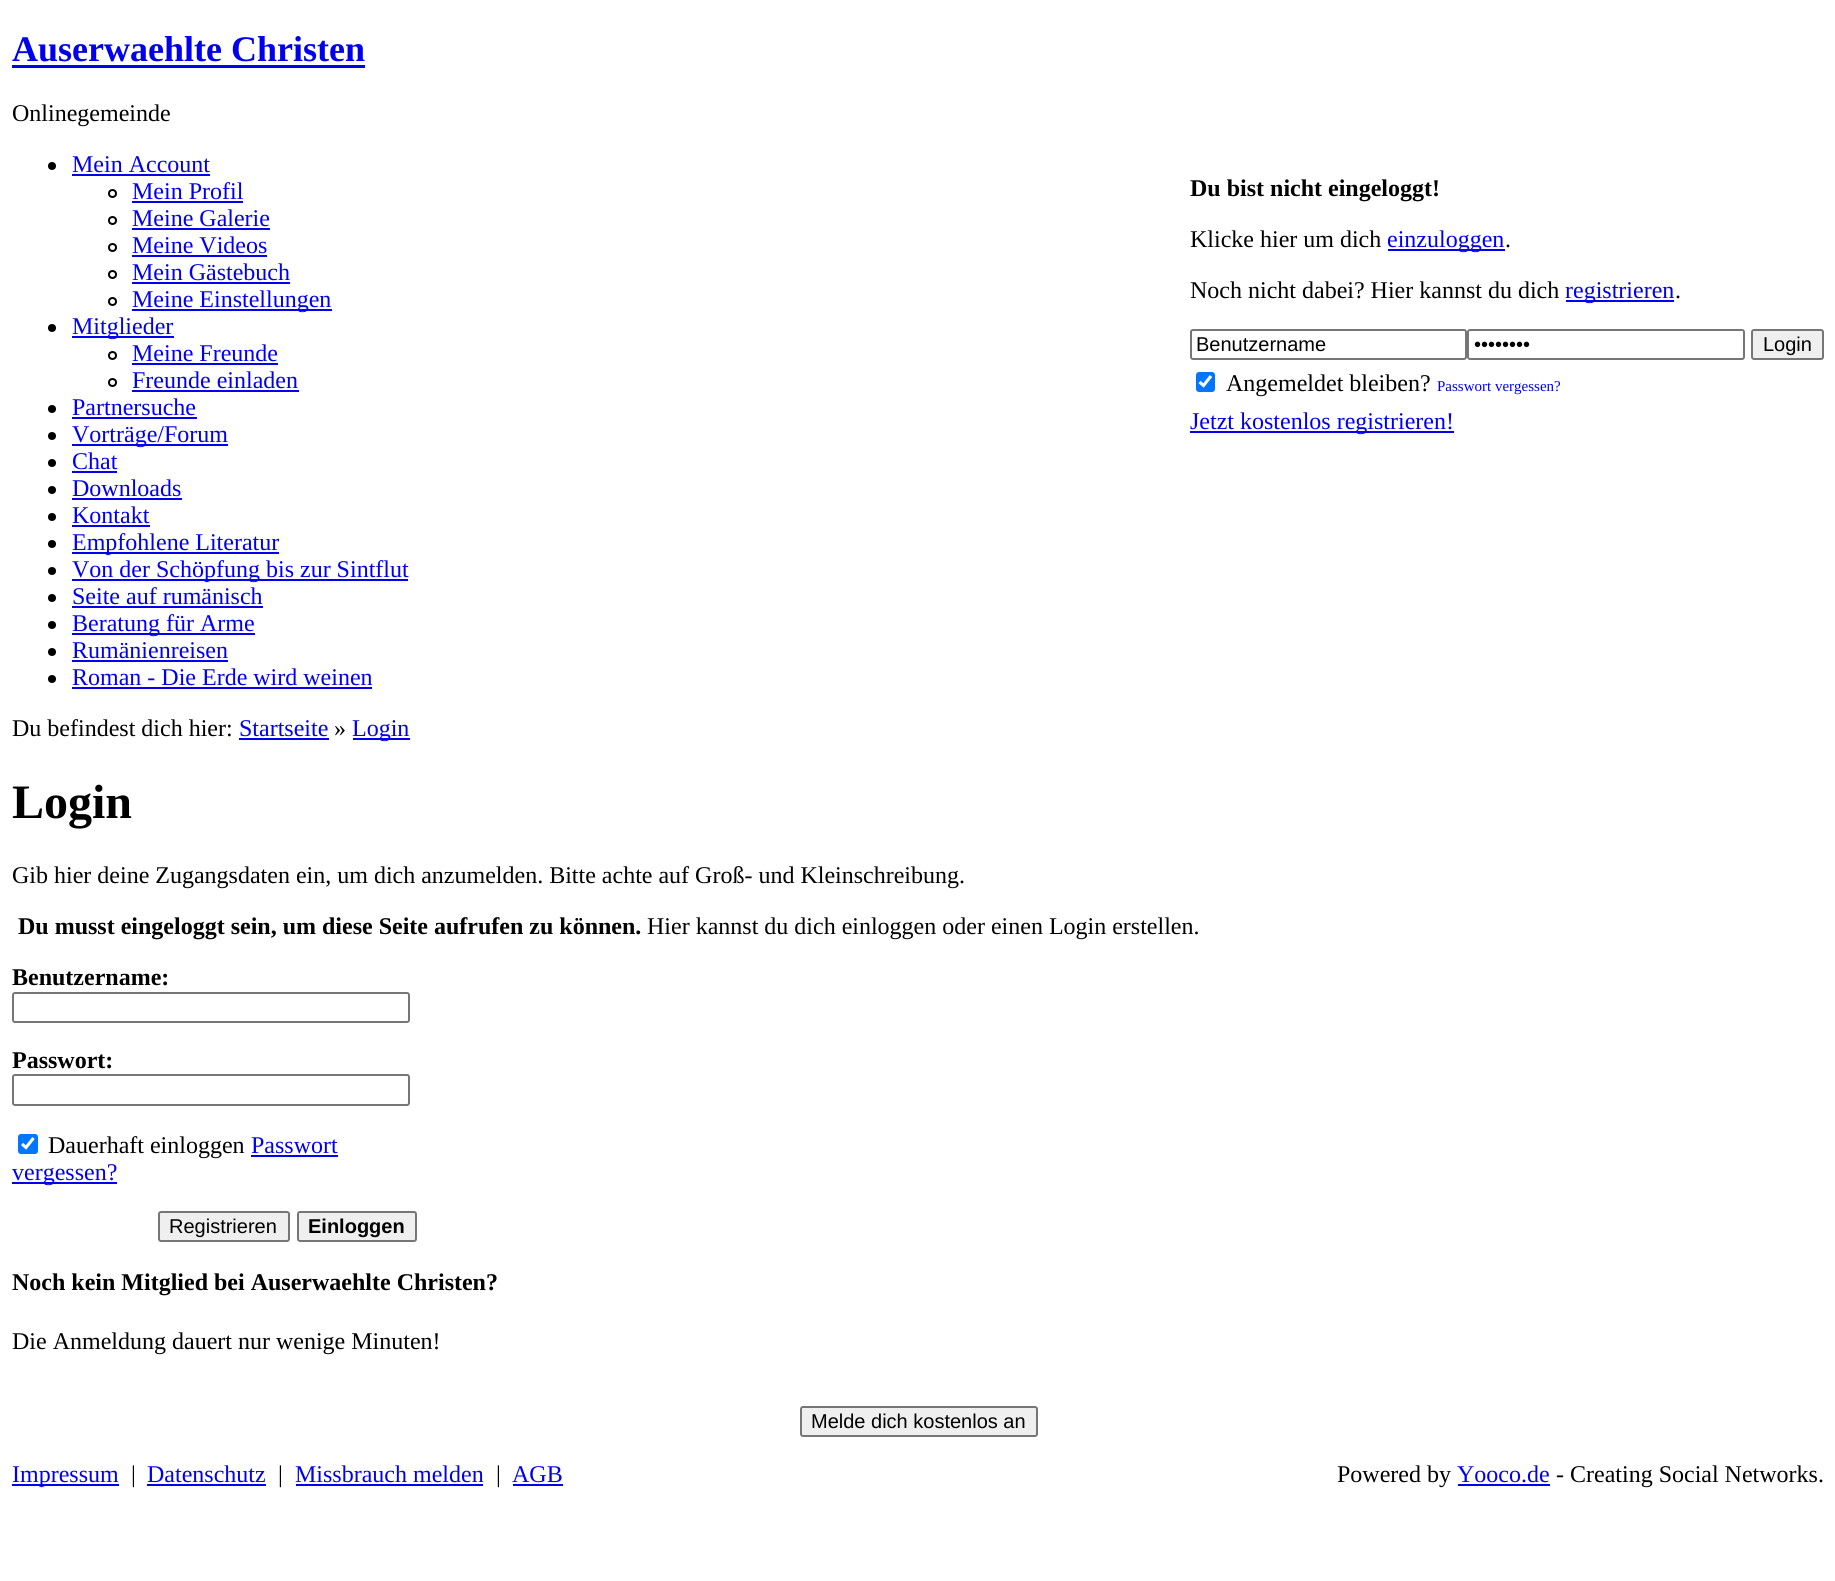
#include <cairo/cairo.h>
#include <math.h>
#include <stddef.h>


static void rounded_rect(cairo_t *cr, double x, double y, double w, double h, double r) {
  cairo_new_sub_path(cr);
  cairo_arc(cr, x + w - r, y + h - r, r, 0, M_PI / 2);
  cairo_arc(cr, x + r, y + h - r, r, M_PI / 2, M_PI);
  cairo_arc(cr, x + r, y + r, r, M_PI, 1.5 * M_PI);
  cairo_arc(cr, x + w - r, y + r, r, 1.5 * M_PI, 2 * M_PI);
  cairo_close_path(cr);
}

static void draw(cairo_t *cr) {
  cairo_set_source_rgb(cr, 1, 1, 1);
  cairo_paint(cr);
  cairo_set_source_rgb(cr, 0, 0, 238 / 255.0);
  cairo_rectangle(cr, 12, 65, 353, 3);
  cairo_fill(cr);
  cairo_rectangle(cr, 1388, 249, 117, 2);
  cairo_fill(cr);
  cairo_rectangle(cr, 1566, 300, 108, 2);
  cairo_fill(cr);
  rounded_rect(cr, 1191, 330, 275, 29, 2);
  cairo_set_source_rgb(cr, 118 / 255.0, 118 / 255.0, 118 / 255.0);
  cairo_stroke(cr);
  rounded_rect(cr, 1468, 330, 276, 29, 2);
  cairo_stroke(cr);
  cairo_set_source_rgb(cr, 239 / 255.0, 239 / 255.0, 239 / 255.0);
  rounded_rect(cr, 1752, 330, 71, 29, 2);
  cairo_fill_preserve(cr);
  cairo_set_source_rgb(cr, 118 / 255.0, 118 / 255.0, 118 / 255.0);
  cairo_stroke(cr);
  cairo_set_source_rgb(cr, 0, 117 / 255.0, 1);
  rounded_rect(cr, 1196, 372, 19, 20, 3);
  cairo_fill(cr);
  cairo_new_path(cr);
  cairo_move_to(cr, 1199.5, 382);
  cairo_line_to(cr, 1203.5, 385.5);
  cairo_line_to(cr, 1211, 376);
  cairo_set_source_rgb(cr, 1, 1, 1);
  cairo_set_line_width(cr, 3.1);
  cairo_stroke(cr);
  cairo_set_source_rgb(cr, 0, 0, 238 / 255.0);
  cairo_rectangle(cr, 1190, 431, 264, 2);
  cairo_fill(cr);
  cairo_set_source_rgb(cr, 0, 0, 0);
  cairo_arc(cr, 52, 166, 4, 0, 2 * M_PI);
  cairo_fill(cr);
  cairo_set_source_rgb(cr, 0, 0, 238 / 255.0);
  cairo_rectangle(cr, 72, 174, 138, 2);
  cairo_fill(cr);
  cairo_arc(cr, 112.5, 193.5, 3.5, 0, 2 * M_PI);
  cairo_set_source_rgb(cr, 0, 0, 0);
  cairo_set_line_width(cr, 2);
  cairo_stroke(cr);
  cairo_set_source_rgb(cr, 0, 0, 238 / 255.0);
  cairo_rectangle(cr, 132, 201, 111, 2);
  cairo_fill(cr);
  cairo_arc(cr, 112.5, 220.5, 3.5, 0, 2 * M_PI);
  cairo_set_source_rgb(cr, 0, 0, 0);
  cairo_stroke(cr);
  cairo_set_source_rgb(cr, 0, 0, 238 / 255.0);
  cairo_rectangle(cr, 132, 228, 138, 2);
  cairo_fill(cr);
  cairo_arc(cr, 112.5, 247.5, 3.5, 0, 2 * M_PI);
  cairo_set_source_rgb(cr, 0, 0, 0);
  cairo_stroke(cr);
  cairo_set_source_rgb(cr, 0, 0, 238 / 255.0);
  cairo_rectangle(cr, 132, 255, 135, 2);
  cairo_fill(cr);
  cairo_arc(cr, 112.5, 274.5, 3.5, 0, 2 * M_PI);
  cairo_set_source_rgb(cr, 0, 0, 0);
  cairo_stroke(cr);
  cairo_set_source_rgb(cr, 0, 0, 238 / 255.0);
  cairo_rectangle(cr, 132, 282, 158, 2);
  cairo_fill(cr);
  cairo_arc(cr, 112.5, 301.5, 3.5, 0, 2 * M_PI);
  cairo_set_source_rgb(cr, 0, 0, 0);
  cairo_stroke(cr);
  cairo_set_source_rgb(cr, 0, 0, 238 / 255.0);
  cairo_rectangle(cr, 132, 309, 200, 2);
  cairo_fill(cr);
  cairo_set_source_rgb(cr, 0, 0, 0);
  cairo_arc(cr, 52, 328, 4, 0, 2 * M_PI);
  cairo_fill(cr);
  cairo_set_source_rgb(cr, 0, 0, 238 / 255.0);
  cairo_rectangle(cr, 72, 336, 102, 2);
  cairo_fill(cr);
  cairo_arc(cr, 112.5, 355.5, 3.5, 0, 2 * M_PI);
  cairo_set_source_rgb(cr, 0, 0, 0);
  cairo_stroke(cr);
  cairo_set_source_rgb(cr, 0, 0, 238 / 255.0);
  cairo_rectangle(cr, 132, 363, 146, 2);
  cairo_fill(cr);
  cairo_arc(cr, 112.5, 382.5, 3.5, 0, 2 * M_PI);
  cairo_set_source_rgb(cr, 0, 0, 0);
  cairo_stroke(cr);
  cairo_set_source_rgb(cr, 0, 0, 238 / 255.0);
  cairo_rectangle(cr, 132, 390, 167, 2);
  cairo_fill(cr);
  cairo_set_source_rgb(cr, 0, 0, 0);
  cairo_arc(cr, 52, 409, 4, 0, 2 * M_PI);
  cairo_fill(cr);
  cairo_set_source_rgb(cr, 0, 0, 238 / 255.0);
  cairo_rectangle(cr, 72, 417, 125, 2);
  cairo_fill(cr);
  cairo_set_source_rgb(cr, 0, 0, 0);
  cairo_arc(cr, 52, 436, 4, 0, 2 * M_PI);
  cairo_fill(cr);
  cairo_set_source_rgb(cr, 0, 0, 238 / 255.0);
  cairo_rectangle(cr, 72, 444, 156, 2);
  cairo_fill(cr);
  cairo_set_source_rgb(cr, 0, 0, 0);
  cairo_arc(cr, 52, 463, 4, 0, 2 * M_PI);
  cairo_fill(cr);
  cairo_set_source_rgb(cr, 0, 0, 238 / 255.0);
  cairo_rectangle(cr, 72, 471, 45, 2);
  cairo_fill(cr);
  cairo_set_source_rgb(cr, 0, 0, 0);
  cairo_arc(cr, 52, 490, 4, 0, 2 * M_PI);
  cairo_fill(cr);
  cairo_set_source_rgb(cr, 0, 0, 238 / 255.0);
  cairo_rectangle(cr, 72, 498, 110, 2);
  cairo_fill(cr);
  cairo_set_source_rgb(cr, 0, 0, 0);
  cairo_arc(cr, 52, 517, 4, 0, 2 * M_PI);
  cairo_fill(cr);
  cairo_set_source_rgb(cr, 0, 0, 238 / 255.0);
  cairo_rectangle(cr, 72, 525, 78, 2);
  cairo_fill(cr);
  cairo_set_source_rgb(cr, 0, 0, 0);
  cairo_arc(cr, 52, 544, 4, 0, 2 * M_PI);
  cairo_fill(cr);
  cairo_set_source_rgb(cr, 0, 0, 238 / 255.0);
  cairo_rectangle(cr, 72, 552, 207, 2);
  cairo_fill(cr);
  cairo_set_source_rgb(cr, 0, 0, 0);
  cairo_arc(cr, 52, 571, 4, 0, 2 * M_PI);
  cairo_fill(cr);
  cairo_set_source_rgb(cr, 0, 0, 238 / 255.0);
  cairo_rectangle(cr, 72, 579, 336, 2);
  cairo_fill(cr);
  cairo_set_source_rgb(cr, 0, 0, 0);
  cairo_arc(cr, 52, 598, 4, 0, 2 * M_PI);
  cairo_fill(cr);
  cairo_set_source_rgb(cr, 0, 0, 238 / 255.0);
  cairo_rectangle(cr, 72, 606, 191, 2);
  cairo_fill(cr);
  cairo_set_source_rgb(cr, 0, 0, 0);
  cairo_arc(cr, 52, 625, 4, 0, 2 * M_PI);
  cairo_fill(cr);
  cairo_set_source_rgb(cr, 0, 0, 238 / 255.0);
  cairo_rectangle(cr, 72, 633, 183, 2);
  cairo_fill(cr);
  cairo_set_source_rgb(cr, 0, 0, 0);
  cairo_arc(cr, 52, 652, 4, 0, 2 * M_PI);
  cairo_fill(cr);
  cairo_set_source_rgb(cr, 0, 0, 238 / 255.0);
  cairo_rectangle(cr, 72, 660, 156, 2);
  cairo_fill(cr);
  cairo_set_source_rgb(cr, 0, 0, 0);
  cairo_arc(cr, 52, 679, 4, 0, 2 * M_PI);
  cairo_fill(cr);
  cairo_set_source_rgb(cr, 0, 0, 238 / 255.0);
  cairo_rectangle(cr, 72, 687, 300, 2);
  cairo_fill(cr);
  cairo_rectangle(cr, 239, 738, 90, 2);
  cairo_fill(cr);
  cairo_rectangle(cr, 353, 738, 57, 2);
  cairo_fill(cr);
  rounded_rect(cr, 13, 993, 396, 29, 2);
  cairo_set_source_rgb(cr, 118 / 255.0, 118 / 255.0, 118 / 255.0);
  cairo_stroke(cr);
  rounded_rect(cr, 13, 1075, 396, 30, 2);
  cairo_stroke(cr);
  cairo_set_source_rgb(cr, 0, 117 / 255.0, 1);
  rounded_rect(cr, 18, 1134, 20, 20, 3);
  cairo_fill(cr);
  cairo_new_path(cr);
  cairo_move_to(cr, 22, 1144);
  cairo_line_to(cr, 26, 1147.5);
  cairo_line_to(cr, 33.5, 1138);
  cairo_set_source_rgb(cr, 1, 1, 1);
  cairo_set_line_width(cr, 3.1);
  cairo_stroke(cr);
  cairo_set_source_rgb(cr, 0, 0, 238 / 255.0);
  cairo_rectangle(cr, 251, 1155, 87, 2);
  cairo_fill(cr);
  cairo_rectangle(cr, 12, 1182, 105, 2);
  cairo_fill(cr);
  cairo_set_source_rgb(cr, 239 / 255.0, 239 / 255.0, 239 / 255.0);
  rounded_rect(cr, 159, 1212, 130, 29, 2);
  cairo_fill_preserve(cr);
  cairo_set_source_rgb(cr, 118 / 255.0, 118 / 255.0, 118 / 255.0);
  cairo_set_line_width(cr, 2);
  cairo_stroke(cr);
  cairo_set_source_rgb(cr, 239 / 255.0, 239 / 255.0, 239 / 255.0);
  rounded_rect(cr, 298, 1212, 118, 29, 2);
  cairo_fill_preserve(cr);
  cairo_set_source_rgb(cr, 118 / 255.0, 118 / 255.0, 118 / 255.0);
  cairo_stroke(cr);
  cairo_set_source_rgb(cr, 239 / 255.0, 239 / 255.0, 239 / 255.0);
  rounded_rect(cr, 801, 1407, 236, 29, 2);
  cairo_fill_preserve(cr);
  cairo_set_source_rgb(cr, 118 / 255.0, 118 / 255.0, 118 / 255.0);
  cairo_stroke(cr);
  cairo_set_source_rgb(cr, 0, 0, 238 / 255.0);
  cairo_rectangle(cr, 12, 1484, 107, 2);
  cairo_fill(cr);
  cairo_rectangle(cr, 147, 1484, 119, 2);
  cairo_fill(cr);
  cairo_rectangle(cr, 296, 1484, 187, 2);
  cairo_fill(cr);
  cairo_rectangle(cr, 513, 1484, 50, 2);
  cairo_fill(cr);
  cairo_rectangle(cr, 1458, 1484, 92, 2);
  cairo_fill(cr);
  cairo_select_font_face(cr, "Liberation Serif", CAIRO_FONT_SLANT_NORMAL, CAIRO_FONT_WEIGHT_BOLD);
  cairo_set_font_size(cr, 36);
  cairo_move_to(cr, 12, 61);
  cairo_show_text(cr, "Auserwaehlte Christen");
  cairo_select_font_face(cr, "Liberation Serif", CAIRO_FONT_SLANT_NORMAL, CAIRO_FONT_WEIGHT_NORMAL);
  cairo_set_font_size(cr, 24);
  cairo_set_source_rgb(cr, 0, 0, 0);
  cairo_move_to(cr, 12, 121);
  cairo_show_text(cr, "Onlinegemeinde");
  cairo_select_font_face(cr, "Liberation Serif", CAIRO_FONT_SLANT_NORMAL, CAIRO_FONT_WEIGHT_BOLD);
  cairo_move_to(cr, 1190, 196);
  cairo_show_text(cr, "Du bist nicht eingeloggt!");
  cairo_select_font_face(cr, "Liberation Serif", CAIRO_FONT_SLANT_NORMAL, CAIRO_FONT_WEIGHT_NORMAL);
  cairo_move_to(cr, 1190, 247);
  cairo_show_text(cr, "Klicke hier um dich");
  cairo_set_source_rgb(cr, 0, 0, 238 / 255.0);
  cairo_move_to(cr, 1387, 247);
  cairo_show_text(cr, "einzuloggen");
  cairo_set_source_rgb(cr, 0, 0, 0);
  cairo_move_to(cr, 1505, 247);
  cairo_show_text(cr, ".");
  cairo_move_to(cr, 1190, 298);
  cairo_show_text(cr, "Noch nicht dabei? Hier kannst du dich");
  cairo_set_source_rgb(cr, 0, 0, 238 / 255.0);
  cairo_move_to(cr, 1565, 298);
  cairo_show_text(cr, "registrieren");
  cairo_set_source_rgb(cr, 0, 0, 0);
  cairo_move_to(cr, 1675, 298);
  cairo_show_text(cr, ".");
  cairo_select_font_face(cr, "Liberation Sans", CAIRO_FONT_SLANT_NORMAL, CAIRO_FONT_WEIGHT_NORMAL);
  cairo_set_font_size(cr, 20);
  cairo_move_to(cr, 1196, 351);
  cairo_show_text(cr, "Benutzername");
  cairo_move_to(cr, 1474, 351);
  cairo_show_text(cr, "••••••••");
  cairo_move_to(cr, 1763, 351);
  cairo_show_text(cr, "Login");
  cairo_select_font_face(cr, "Liberation Serif", CAIRO_FONT_SLANT_NORMAL, CAIRO_FONT_WEIGHT_NORMAL);
  cairo_set_font_size(cr, 24);
  cairo_move_to(cr, 1226, 391);
  cairo_show_text(cr, "Angemeldet bleiben?");
  cairo_set_font_size(cr, 15);
  cairo_set_source_rgb(cr, 0, 0, 238 / 255.0);
  cairo_move_to(cr, 1437, 391);
  cairo_show_text(cr, "Passwort vergessen?");
  cairo_set_font_size(cr, 24);
  cairo_move_to(cr, 1190, 429);
  cairo_show_text(cr, "Jetzt kostenlos registrieren!");
  cairo_move_to(cr, 72, 172);
  cairo_show_text(cr, "Mein Account");
  cairo_move_to(cr, 132, 199);
  cairo_show_text(cr, "Mein Profil");
  cairo_move_to(cr, 132, 226);
  cairo_show_text(cr, "Meine Galerie");
  cairo_move_to(cr, 132, 253);
  cairo_show_text(cr, "Meine Videos");
  cairo_move_to(cr, 132, 280);
  cairo_show_text(cr, "Mein Gästebuch");
  cairo_move_to(cr, 132, 307);
  cairo_show_text(cr, "Meine Einstellungen");
  cairo_move_to(cr, 72, 334);
  cairo_show_text(cr, "Mitglieder");
  cairo_move_to(cr, 132, 361);
  cairo_show_text(cr, "Meine Freunde");
  cairo_move_to(cr, 132, 388);
  cairo_show_text(cr, "Freunde einladen");
  cairo_move_to(cr, 72, 415);
  cairo_show_text(cr, "Partnersuche");
  cairo_move_to(cr, 72, 442);
  cairo_show_text(cr, "Vorträge/Forum");
  cairo_move_to(cr, 72, 469);
  cairo_show_text(cr, "Chat");
  cairo_move_to(cr, 72, 496);
  cairo_show_text(cr, "Downloads");
  cairo_move_to(cr, 72, 523);
  cairo_show_text(cr, "Kontakt");
  cairo_move_to(cr, 72, 550);
  cairo_show_text(cr, "Empfohlene Literatur");
  cairo_move_to(cr, 72, 577);
  cairo_show_text(cr, "Von der Schöpfung bis zur Sintflut");
  cairo_move_to(cr, 72, 604);
  cairo_show_text(cr, "Seite auf rumänisch");
  cairo_move_to(cr, 72, 631);
  cairo_show_text(cr, "Beratung für Arme");
  cairo_move_to(cr, 72, 658);
  cairo_show_text(cr, "Rumänienreisen");
  cairo_move_to(cr, 72, 685);
  cairo_show_text(cr, "Roman - Die Erde wird weinen");
  cairo_set_source_rgb(cr, 0, 0, 0);
  cairo_move_to(cr, 12, 736);
  cairo_show_text(cr, "Du befindest dich hier:");
  cairo_set_source_rgb(cr, 0, 0, 238 / 255.0);
  cairo_move_to(cr, 239, 736);
  cairo_show_text(cr, "Startseite");
  cairo_set_source_rgb(cr, 0, 0, 0);
  cairo_move_to(cr, 334, 736);
  cairo_show_text(cr, "»");
  cairo_set_source_rgb(cr, 0, 0, 238 / 255.0);
  cairo_move_to(cr, 352, 736);
  cairo_show_text(cr, "Login");
  cairo_select_font_face(cr, "Liberation Serif", CAIRO_FONT_SLANT_NORMAL, CAIRO_FONT_WEIGHT_BOLD);
  cairo_set_font_size(cr, 48);
  cairo_set_source_rgb(cr, 0, 0, 0);
  cairo_move_to(cr, 12, 818);
  cairo_show_text(cr, "Login");
  cairo_select_font_face(cr, "Liberation Serif", CAIRO_FONT_SLANT_NORMAL, CAIRO_FONT_WEIGHT_NORMAL);
  cairo_set_font_size(cr, 24);
  cairo_move_to(cr, 12, 883);
  cairo_show_text(cr, "Gib hier deine Zugangsdaten ein, um dich anzumelden. Bitte achte auf Groß- und Kleinschreibung.");
  cairo_select_font_face(cr, "Liberation Serif", CAIRO_FONT_SLANT_NORMAL, CAIRO_FONT_WEIGHT_BOLD);
  cairo_move_to(cr, 18, 934);
  cairo_show_text(cr, "Du musst eingeloggt sein, um diese Seite aufrufen zu können.");
  cairo_select_font_face(cr, "Liberation Serif", CAIRO_FONT_SLANT_NORMAL, CAIRO_FONT_WEIGHT_NORMAL);
  cairo_move_to(cr, 647, 934);
  cairo_show_text(cr, "Hier kannst du dich einloggen oder einen Login erstellen.");
  cairo_select_font_face(cr, "Liberation Serif", CAIRO_FONT_SLANT_NORMAL, CAIRO_FONT_WEIGHT_BOLD);
  cairo_move_to(cr, 12, 985);
  cairo_show_text(cr, "Benutzername:");
  cairo_move_to(cr, 12, 1068);
  cairo_show_text(cr, "Passwort:");
  cairo_select_font_face(cr, "Liberation Serif", CAIRO_FONT_SLANT_NORMAL, CAIRO_FONT_WEIGHT_NORMAL);
  cairo_move_to(cr, 48, 1153);
  cairo_show_text(cr, "Dauerhaft einloggen");
  cairo_set_source_rgb(cr, 0, 0, 238 / 255.0);
  cairo_move_to(cr, 251, 1153);
  cairo_show_text(cr, "Passwort");
  cairo_move_to(cr, 12, 1180);
  cairo_show_text(cr, "vergessen?");
  cairo_select_font_face(cr, "Liberation Sans", CAIRO_FONT_SLANT_NORMAL, CAIRO_FONT_WEIGHT_NORMAL);
  cairo_set_font_size(cr, 20);
  cairo_set_source_rgb(cr, 0, 0, 0);
  cairo_move_to(cr, 169, 1233);
  cairo_show_text(cr, "Registrieren");
  cairo_select_font_face(cr, "Liberation Sans", CAIRO_FONT_SLANT_NORMAL, CAIRO_FONT_WEIGHT_BOLD);
  cairo_move_to(cr, 308, 1233);
  cairo_show_text(cr, "Einloggen");
  cairo_select_font_face(cr, "Liberation Serif", CAIRO_FONT_SLANT_NORMAL, CAIRO_FONT_WEIGHT_BOLD);
  cairo_set_font_size(cr, 24);
  cairo_move_to(cr, 12, 1290);
  cairo_show_text(cr, "Noch kein Mitglied bei Auserwaehlte Christen?");
  cairo_select_font_face(cr, "Liberation Serif", CAIRO_FONT_SLANT_NORMAL, CAIRO_FONT_WEIGHT_NORMAL);
  cairo_move_to(cr, 12, 1349);
  cairo_show_text(cr, "Die Anmeldung dauert nur wenige Minuten!");
  cairo_select_font_face(cr, "Liberation Sans", CAIRO_FONT_SLANT_NORMAL, CAIRO_FONT_WEIGHT_NORMAL);
  cairo_set_font_size(cr, 20);
  cairo_move_to(cr, 811, 1428);
  cairo_show_text(cr, "Melde dich kostenlos an");
  cairo_select_font_face(cr, "Liberation Serif", CAIRO_FONT_SLANT_NORMAL, CAIRO_FONT_WEIGHT_NORMAL);
  cairo_set_font_size(cr, 24);
  cairo_set_source_rgb(cr, 0, 0, 238 / 255.0);
  cairo_move_to(cr, 12, 1482);
  cairo_show_text(cr, "Impressum");
  cairo_set_source_rgb(cr, 0, 0, 0);
  cairo_move_to(cr, 131, 1482);
  cairo_show_text(cr, "|");
  cairo_set_source_rgb(cr, 0, 0, 238 / 255.0);
  cairo_move_to(cr, 147, 1482);
  cairo_show_text(cr, "Datenschutz");
  cairo_set_source_rgb(cr, 0, 0, 0);
  cairo_move_to(cr, 278, 1482);
  cairo_show_text(cr, "|");
  cairo_set_source_rgb(cr, 0, 0, 238 / 255.0);
  cairo_move_to(cr, 295, 1482);
  cairo_show_text(cr, "Missbrauch melden");
  cairo_set_source_rgb(cr, 0, 0, 0);
  cairo_move_to(cr, 496, 1482);
  cairo_show_text(cr, "|");
  cairo_set_source_rgb(cr, 0, 0, 238 / 255.0);
  cairo_move_to(cr, 512, 1482);
  cairo_show_text(cr, "AGB");
  cairo_set_source_rgb(cr, 0, 0, 0);
  cairo_move_to(cr, 1337, 1482);
  cairo_show_text(cr, "Powered by");
  cairo_set_source_rgb(cr, 0, 0, 238 / 255.0);
  cairo_move_to(cr, 1457, 1482);
  cairo_show_text(cr, "Yooco.de");
  cairo_set_source_rgb(cr, 0, 0, 0);
  cairo_move_to(cr, 1556, 1482);
  cairo_show_text(cr, "- Creating Social Networks.");
}

int main(void) {
  cairo_surface_t *surface = cairo_image_surface_create(CAIRO_FORMAT_RGB24, 1835, 1581);
  cairo_t *cr = cairo_create(surface);
  cairo_font_options_t *options = cairo_font_options_create();
  cairo_font_options_set_hint_metrics(options, CAIRO_HINT_METRICS_OFF);
  cairo_font_options_set_hint_style(options, CAIRO_HINT_STYLE_NONE);
  cairo_set_font_options(cr, options);
  cairo_set_miter_limit(cr, 4);
  draw(cr);
  cairo_surface_write_to_png(surface, "out.png");
  cairo_font_options_destroy(options);
  cairo_destroy(cr);
  cairo_surface_destroy(surface);
  return 0;
}
